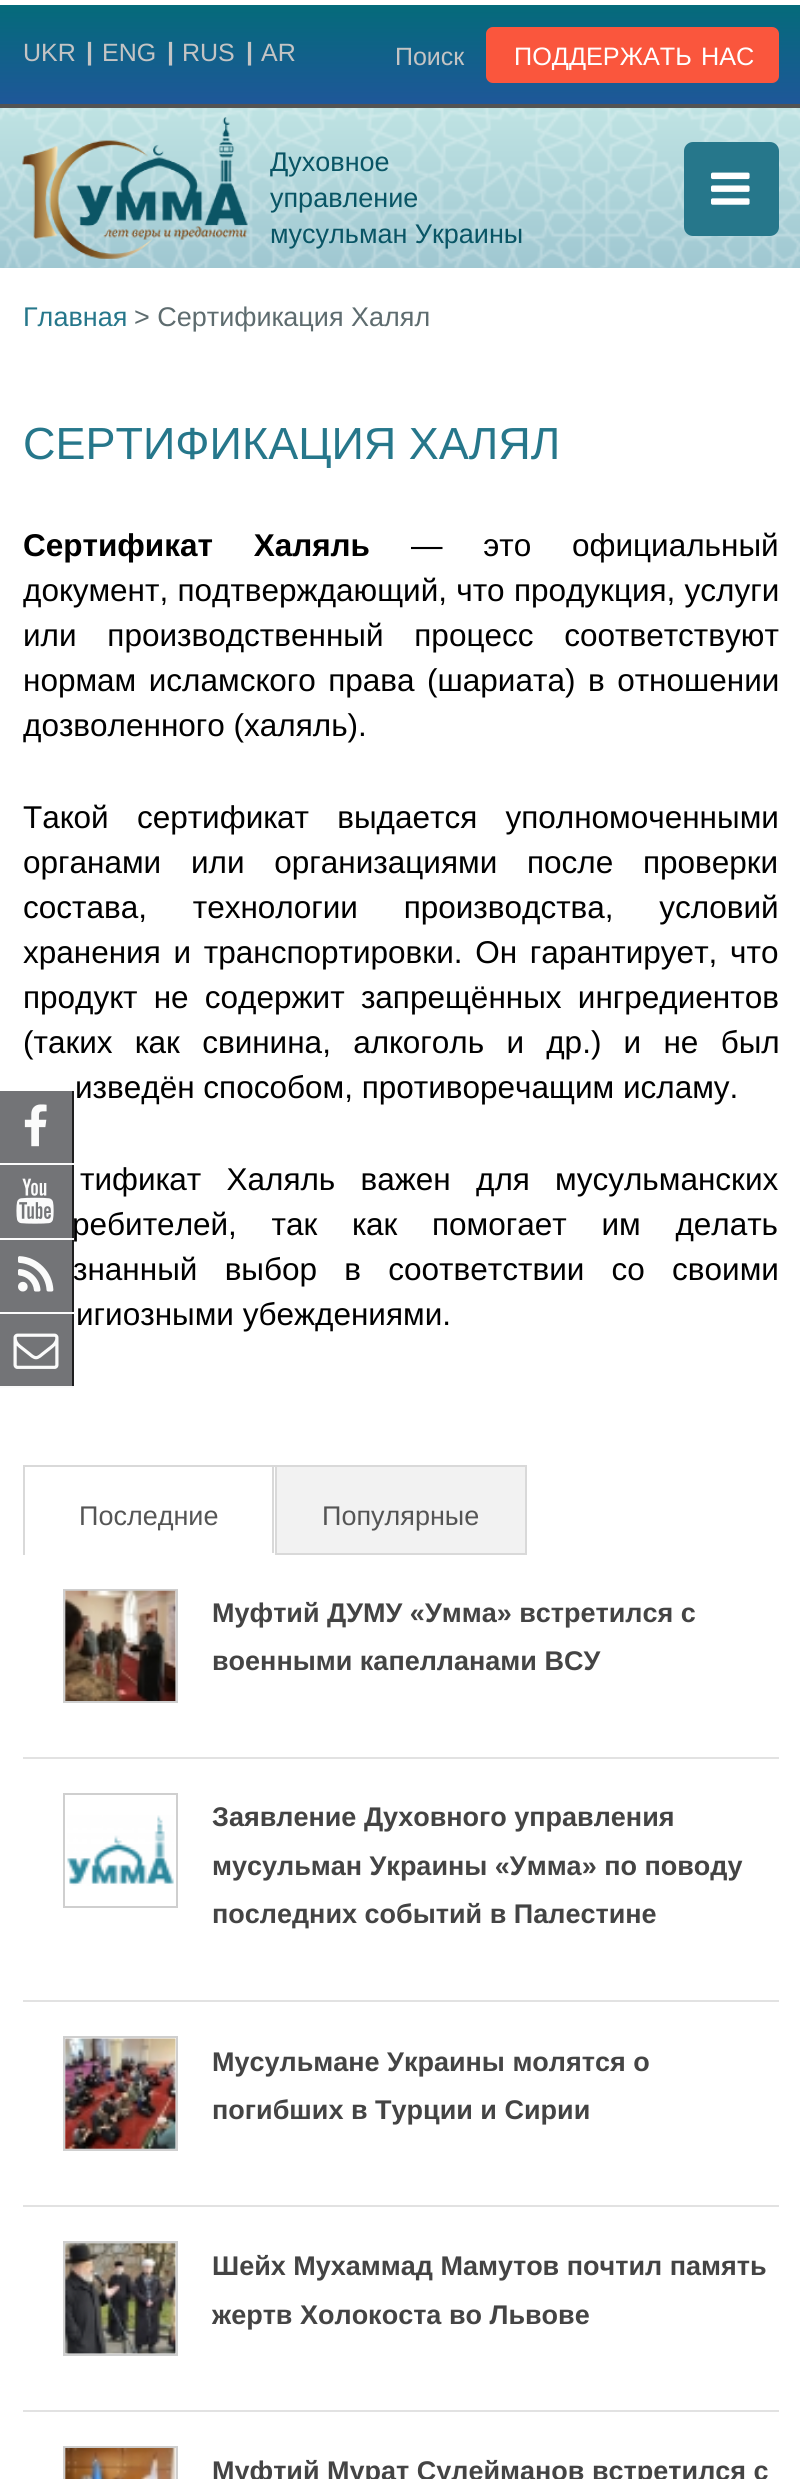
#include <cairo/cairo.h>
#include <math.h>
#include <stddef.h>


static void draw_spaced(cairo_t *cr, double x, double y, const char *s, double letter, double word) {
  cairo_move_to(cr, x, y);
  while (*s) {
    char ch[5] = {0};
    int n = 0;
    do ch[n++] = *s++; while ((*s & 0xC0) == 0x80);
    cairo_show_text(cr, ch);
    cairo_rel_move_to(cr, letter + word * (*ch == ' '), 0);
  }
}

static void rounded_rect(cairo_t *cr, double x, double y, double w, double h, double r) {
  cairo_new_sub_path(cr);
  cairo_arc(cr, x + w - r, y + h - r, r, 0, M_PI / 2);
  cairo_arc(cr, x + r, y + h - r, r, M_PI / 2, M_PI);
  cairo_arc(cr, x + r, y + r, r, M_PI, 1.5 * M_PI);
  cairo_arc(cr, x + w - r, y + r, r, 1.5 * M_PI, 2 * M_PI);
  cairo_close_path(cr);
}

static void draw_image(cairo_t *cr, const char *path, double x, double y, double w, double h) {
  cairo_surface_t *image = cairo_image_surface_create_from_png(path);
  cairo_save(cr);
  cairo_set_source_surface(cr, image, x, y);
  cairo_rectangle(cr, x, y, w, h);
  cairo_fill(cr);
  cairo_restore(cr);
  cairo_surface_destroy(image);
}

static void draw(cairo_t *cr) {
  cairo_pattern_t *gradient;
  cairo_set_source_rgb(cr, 1, 1, 1);
  cairo_paint(cr);
  gradient = cairo_pattern_create_linear(401, 4.5, 401, 104);
  cairo_pattern_add_color_stop_rgba(gradient, 0, 4 / 255.0, 107 / 255.0, 122 / 255.0, 1);
  cairo_pattern_add_color_stop_rgba(gradient, 1, 30 / 255.0, 87 / 255.0, 153 / 255.0, 1);
  cairo_set_source(cr, gradient);
  cairo_pattern_destroy(gradient);
  cairo_rectangle(cr, 0, 5, 800, 99);
  cairo_fill(cr);
  cairo_set_source_rgb(cr, 83 / 255.0, 83 / 255.0, 83 / 255.0);
  cairo_rectangle(cr, 0, 104, 800, 4);
  cairo_fill(cr);
  cairo_set_source_rgb(cr, 250 / 255.0, 86 / 255.0, 61 / 255.0);
  rounded_rect(cr, 486, 27, 293, 56, 7);
  cairo_fill(cr);
  gradient = cairo_pattern_create_linear(401, 108, 401, 268);
  cairo_pattern_add_color_stop_rgba(gradient, 0, 191 / 255.0, 227 / 255.0, 227 / 255.0, 1);
  cairo_pattern_add_color_stop_rgba(gradient, 1, 159 / 255.0, 199 / 255.0, 209 / 255.0, 1);
  cairo_set_source(cr, gradient);
  cairo_pattern_destroy(gradient);
  cairo_rectangle(cr, 0, 108, 800, 160);
  cairo_fill(cr);
  draw_image(cr, "images/1.png", 0, 108, 800, 160);
  draw_image(cr, "images/2.png", 22, 117, 226, 142);
  cairo_set_source_rgb(cr, 38 / 255.0, 119 / 255.0, 139 / 255.0);
  rounded_rect(cr, 684, 142, 95, 94, 9);
  cairo_fill(cr);
  draw_image(cr, "images/3.png", 711, 172, 39, 33);
  cairo_set_source_rgb(cr, 217 / 255.0, 217 / 255.0, 217 / 255.0);
  cairo_rectangle(cr, 23, 1465, 252, 2);
  cairo_fill(cr);
  cairo_rectangle(cr, 272, 1465, 2, 90);
  cairo_fill(cr);
  cairo_set_source_rgb(cr, 1, 1, 1);
  cairo_rectangle(cr, 272, 1553, 3, 2);
  cairo_fill(cr);
  cairo_set_source_rgb(cr, 217 / 255.0, 217 / 255.0, 217 / 255.0);
  cairo_rectangle(cr, 23, 1465, 2, 90);
  cairo_fill(cr);
  cairo_set_source_rgb(cr, 242 / 255.0, 242 / 255.0, 242 / 255.0);
  cairo_rectangle(cr, 276, 1466, 250, 88);
  cairo_fill_preserve(cr);
  cairo_set_source_rgb(cr, 217 / 255.0, 217 / 255.0, 217 / 255.0);
  cairo_stroke(cr);
  cairo_set_source_rgb(cr, 226 / 255.0, 226 / 255.0, 226 / 255.0);
  cairo_rectangle(cr, 23, 1757, 756, 2);
  cairo_fill(cr);
  cairo_rectangle(cr, 64, 1590, 113, 112);
  cairo_set_source_rgb(cr, 207 / 255.0, 207 / 255.0, 207 / 255.0);
  cairo_stroke(cr);
  draw_image(cr, "images/4.png", 65, 1590, 111, 111);
  cairo_set_source_rgb(cr, 226 / 255.0, 226 / 255.0, 226 / 255.0);
  cairo_rectangle(cr, 23, 2000, 756, 2);
  cairo_fill(cr);
  cairo_rectangle(cr, 64, 1794, 113, 113);
  cairo_set_source_rgb(cr, 207 / 255.0, 207 / 255.0, 207 / 255.0);
  cairo_stroke(cr);
  draw_image(cr, "images/5.png", 67, 1815, 107, 71);
  cairo_set_source_rgb(cr, 226 / 255.0, 226 / 255.0, 226 / 255.0);
  cairo_rectangle(cr, 23, 2205, 756, 2);
  cairo_fill(cr);
  cairo_rectangle(cr, 64, 2037, 113, 113);
  cairo_set_source_rgb(cr, 207 / 255.0, 207 / 255.0, 207 / 255.0);
  cairo_stroke(cr);
  draw_image(cr, "images/6.png", 65, 2038, 111, 111);
  cairo_set_source_rgb(cr, 226 / 255.0, 226 / 255.0, 226 / 255.0);
  cairo_rectangle(cr, 23, 2410, 756, 2);
  cairo_fill(cr);
  cairo_rectangle(cr, 64, 2242, 113, 113);
  cairo_set_source_rgb(cr, 207 / 255.0, 207 / 255.0, 207 / 255.0);
  cairo_stroke(cr);
  draw_image(cr, "images/7.png", 65, 2243, 111, 111);
  cairo_rectangle(cr, 64, 2447, 113, 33);
  cairo_stroke(cr);
  draw_image(cr, "images/8.png", 65, 2448, 111, 31);
  cairo_set_source_rgb(cr, 115 / 255.0, 116 / 255.0, 119 / 255.0);
  cairo_rectangle(cr, 0, 1091, 72, 147);
  cairo_fill(cr);
  draw_image(cr, "images/9.png", 24, 1104, 23, 43);
  draw_image(cr, "images/10.png", 16, 1178, 38, 46);
  cairo_rectangle(cr, 0, 1240, 72, 72);
  cairo_fill(cr);
  draw_image(cr, "images/11.png", 18, 1256, 36, 36);
  cairo_rectangle(cr, 0, 1314, 72, 72);
  cairo_fill(cr);
  draw_image(cr, "images/12.png", 13, 1333, 46, 36);
  cairo_select_font_face(cr, "Liberation Sans", CAIRO_FONT_SLANT_NORMAL, CAIRO_FONT_WEIGHT_NORMAL);
  cairo_set_font_size(cr, 25);
  cairo_set_source_rgb(cr, 196 / 255.0, 196 / 255.0, 196 / 255.0);
  cairo_move_to(cr, 23, 61);
  cairo_show_text(cr, "UKR");
  cairo_select_font_face(cr, "Liberation Sans", CAIRO_FONT_SLANT_NORMAL, CAIRO_FONT_WEIGHT_BOLD);
  cairo_move_to(cr, 86, 60);
  cairo_show_text(cr, "|");
  cairo_select_font_face(cr, "Liberation Sans", CAIRO_FONT_SLANT_NORMAL, CAIRO_FONT_WEIGHT_NORMAL);
  cairo_move_to(cr, 102, 61);
  cairo_show_text(cr, "ENG");
  cairo_select_font_face(cr, "Liberation Sans", CAIRO_FONT_SLANT_NORMAL, CAIRO_FONT_WEIGHT_BOLD);
  cairo_move_to(cr, 167, 60);
  cairo_show_text(cr, "|");
  cairo_select_font_face(cr, "Liberation Sans", CAIRO_FONT_SLANT_NORMAL, CAIRO_FONT_WEIGHT_NORMAL);
  cairo_move_to(cr, 182, 61);
  cairo_show_text(cr, "RUS");
  cairo_select_font_face(cr, "Liberation Sans", CAIRO_FONT_SLANT_NORMAL, CAIRO_FONT_WEIGHT_BOLD);
  cairo_move_to(cr, 246, 60);
  cairo_show_text(cr, "|");
  cairo_select_font_face(cr, "Liberation Sans", CAIRO_FONT_SLANT_NORMAL, CAIRO_FONT_WEIGHT_NORMAL);
  cairo_move_to(cr, 261, 61);
  cairo_show_text(cr, "AR");
  cairo_move_to(cr, 395, 65);
  cairo_show_text(cr, "Поиск");
  cairo_set_font_size(cr, 25.25);
  cairo_set_source_rgb(cr, 1, 1, 1);
  cairo_move_to(cr, 514, 65);
  cairo_show_text(cr, "ПОДДЕРЖАТЬ");
  cairo_move_to(cr, 701, 65);
  cairo_show_text(cr, "НАС");
  cairo_set_font_size(cr, 27);
  cairo_set_source_rgb(cr, 9 / 255.0, 85 / 255.0, 101 / 255.0);
  cairo_move_to(cr, 270, 171);
  cairo_show_text(cr, "Духовное");
  cairo_move_to(cr, 270, 207);
  cairo_show_text(cr, "управление");
  cairo_move_to(cr, 270, 243);
  cairo_show_text(cr, "мусульман Украины");
  cairo_set_source_rgb(cr, 38 / 255.0, 119 / 255.0, 139 / 255.0);
  cairo_move_to(cr, 23, 326);
  cairo_show_text(cr, "Главная");
  cairo_set_source_rgb(cr, 94 / 255.0, 108 / 255.0, 111 / 255.0);
  cairo_move_to(cr, 134, 326);
  cairo_show_text(cr, "> Сертификация Халял");
  cairo_set_font_size(cr, 45);
  cairo_set_source_rgb(cr, 38 / 255.0, 119 / 255.0, 139 / 255.0);
  cairo_move_to(cr, 23, 459);
  cairo_show_text(cr, "СЕРТИФИКАЦИЯ ХАЛЯЛ");
  cairo_select_font_face(cr, "Liberation Sans", CAIRO_FONT_SLANT_NORMAL, CAIRO_FONT_WEIGHT_BOLD);
  cairo_set_font_size(cr, 31.5);
  cairo_set_source_rgb(cr, 0, 0, 0);
  draw_spaced(cr, 23, 556, "Сертификат Халяль", 0, 32);
  cairo_select_font_face(cr, "Liberation Sans", CAIRO_FONT_SLANT_NORMAL, CAIRO_FONT_WEIGHT_NORMAL);
  draw_spaced(cr, 411, 556, "— это официальный", 0, 32);
  draw_spaced(cr, 23, 601, "документ, подтверждающий, что продукция, услуги", 0, 0.5);
  draw_spaced(cr, 23, 646, "или производственный процесс соответствуют", 0, 22);
  draw_spaced(cr, 23, 691, "нормам исламского права (шариата) в отношении", 0, 3.75);
  cairo_move_to(cr, 23, 736);
  cairo_show_text(cr, "дозволенного (халяль).");
  draw_spaced(cr, 23, 828, "Такой сертификат выдается уполномоченными", 0, 19.5);
  draw_spaced(cr, 23, 873, "органами или организациями после проверки", 0, 21);
  draw_spaced(cr, 23, 918, "состава, технологии производства, условий", 0, 37);
  draw_spaced(cr, 23, 963, "хранения и транспортировки. Он гарантирует, что", 0, 4);
  draw_spaced(cr, 23, 1008, "продукт не содержит запрещённых ингредиентов", 0, 7.5);
  draw_spaced(cr, 23, 1053, "(таких как свинина, алкоголь и др.) и не был", 0, 13.5);
  cairo_move_to(cr, 75, 1098);
  cairo_show_text(cr, "изведён способом, противоречащим исламу.");
  draw_spaced(cr, 80, 1190, "тификат Халяль важен для мусульманских", 0, 16.5);
  draw_spaced(cr, 72, 1235, "ребителей, так как помогает им делать", 0, 26);
  draw_spaced(cr, 73, 1280, "знанный выбор в соответствии со своими", 0, 18.5);
  cairo_move_to(cr, 76, 1325);
  cairo_show_text(cr, "игиозными убеждениями.");
  cairo_set_font_size(cr, 27);
  cairo_set_source_rgb(cr, 85 / 255.0, 85 / 255.0, 85 / 255.0);
  cairo_move_to(cr, 79, 1525);
  cairo_show_text(cr, "Последние");
  cairo_move_to(cr, 322, 1525);
  cairo_show_text(cr, "Популярные");
  cairo_select_font_face(cr, "Liberation Sans", CAIRO_FONT_SLANT_NORMAL, CAIRO_FONT_WEIGHT_BOLD);
  cairo_set_source_rgb(cr, 68 / 255.0, 68 / 255.0, 68 / 255.0);
  cairo_move_to(cr, 212, 1622);
  cairo_show_text(cr, "Муфтий ДУМУ «Умма» встретился с");
  cairo_move_to(cr, 212, 1670);
  cairo_show_text(cr, "военными капелланами ВСУ");
  cairo_move_to(cr, 212, 1826);
  cairo_show_text(cr, "Заявление Духовного управления");
  cairo_move_to(cr, 212, 1875);
  cairo_show_text(cr, "мусульман Украины «Умма» по поводу");
  cairo_move_to(cr, 212, 1923);
  cairo_show_text(cr, "последних событий в Палестине");
  cairo_move_to(cr, 212, 2071);
  cairo_show_text(cr, "Мусульмане Украины молятся о");
  cairo_move_to(cr, 212, 2119);
  cairo_show_text(cr, "погибших в Турции и Сирии");
  cairo_move_to(cr, 212, 2275);
  cairo_show_text(cr, "Шейх Мухаммад Мамутов почтил память");
  cairo_move_to(cr, 212, 2324);
  cairo_show_text(cr, "жертв Холокоста во Львове");
  cairo_move_to(cr, 212, 2480);
  cairo_show_text(cr, "Муфтий Мурат Сулейманов встретился с");
  cairo_set_source_rgb(cr, 30 / 255.0, 30 / 255.0, 31 / 255.0);
  cairo_rectangle(cr, 72, 1091, 2, 297);
  cairo_fill(cr);
  cairo_set_source_rgb(cr, 251 / 255.0, 251 / 255.0, 251 / 255.0);
  cairo_rectangle(cr, 0, 1163, 74, 2);
  cairo_fill(cr);
  cairo_rectangle(cr, 0, 1238, 74, 2);
  cairo_fill(cr);
  cairo_rectangle(cr, 0, 1312, 74, 2);
  cairo_fill(cr);
  cairo_rectangle(cr, 0, 1386, 74, 2);
  cairo_fill(cr);
}

int main(void) {
  cairo_surface_t *surface = cairo_image_surface_create(CAIRO_FORMAT_RGB24, 800, 2479);
  cairo_t *cr = cairo_create(surface);
  cairo_font_options_t *options = cairo_font_options_create();
  cairo_font_options_set_hint_metrics(options, CAIRO_HINT_METRICS_OFF);
  cairo_font_options_set_hint_style(options, CAIRO_HINT_STYLE_NONE);
  cairo_set_font_options(cr, options);
  cairo_set_miter_limit(cr, 4);
  draw(cr);
  cairo_surface_write_to_png(surface, "out.png");
  cairo_font_options_destroy(options);
  cairo_destroy(cr);
  cairo_surface_destroy(surface);
  return 0;
}
